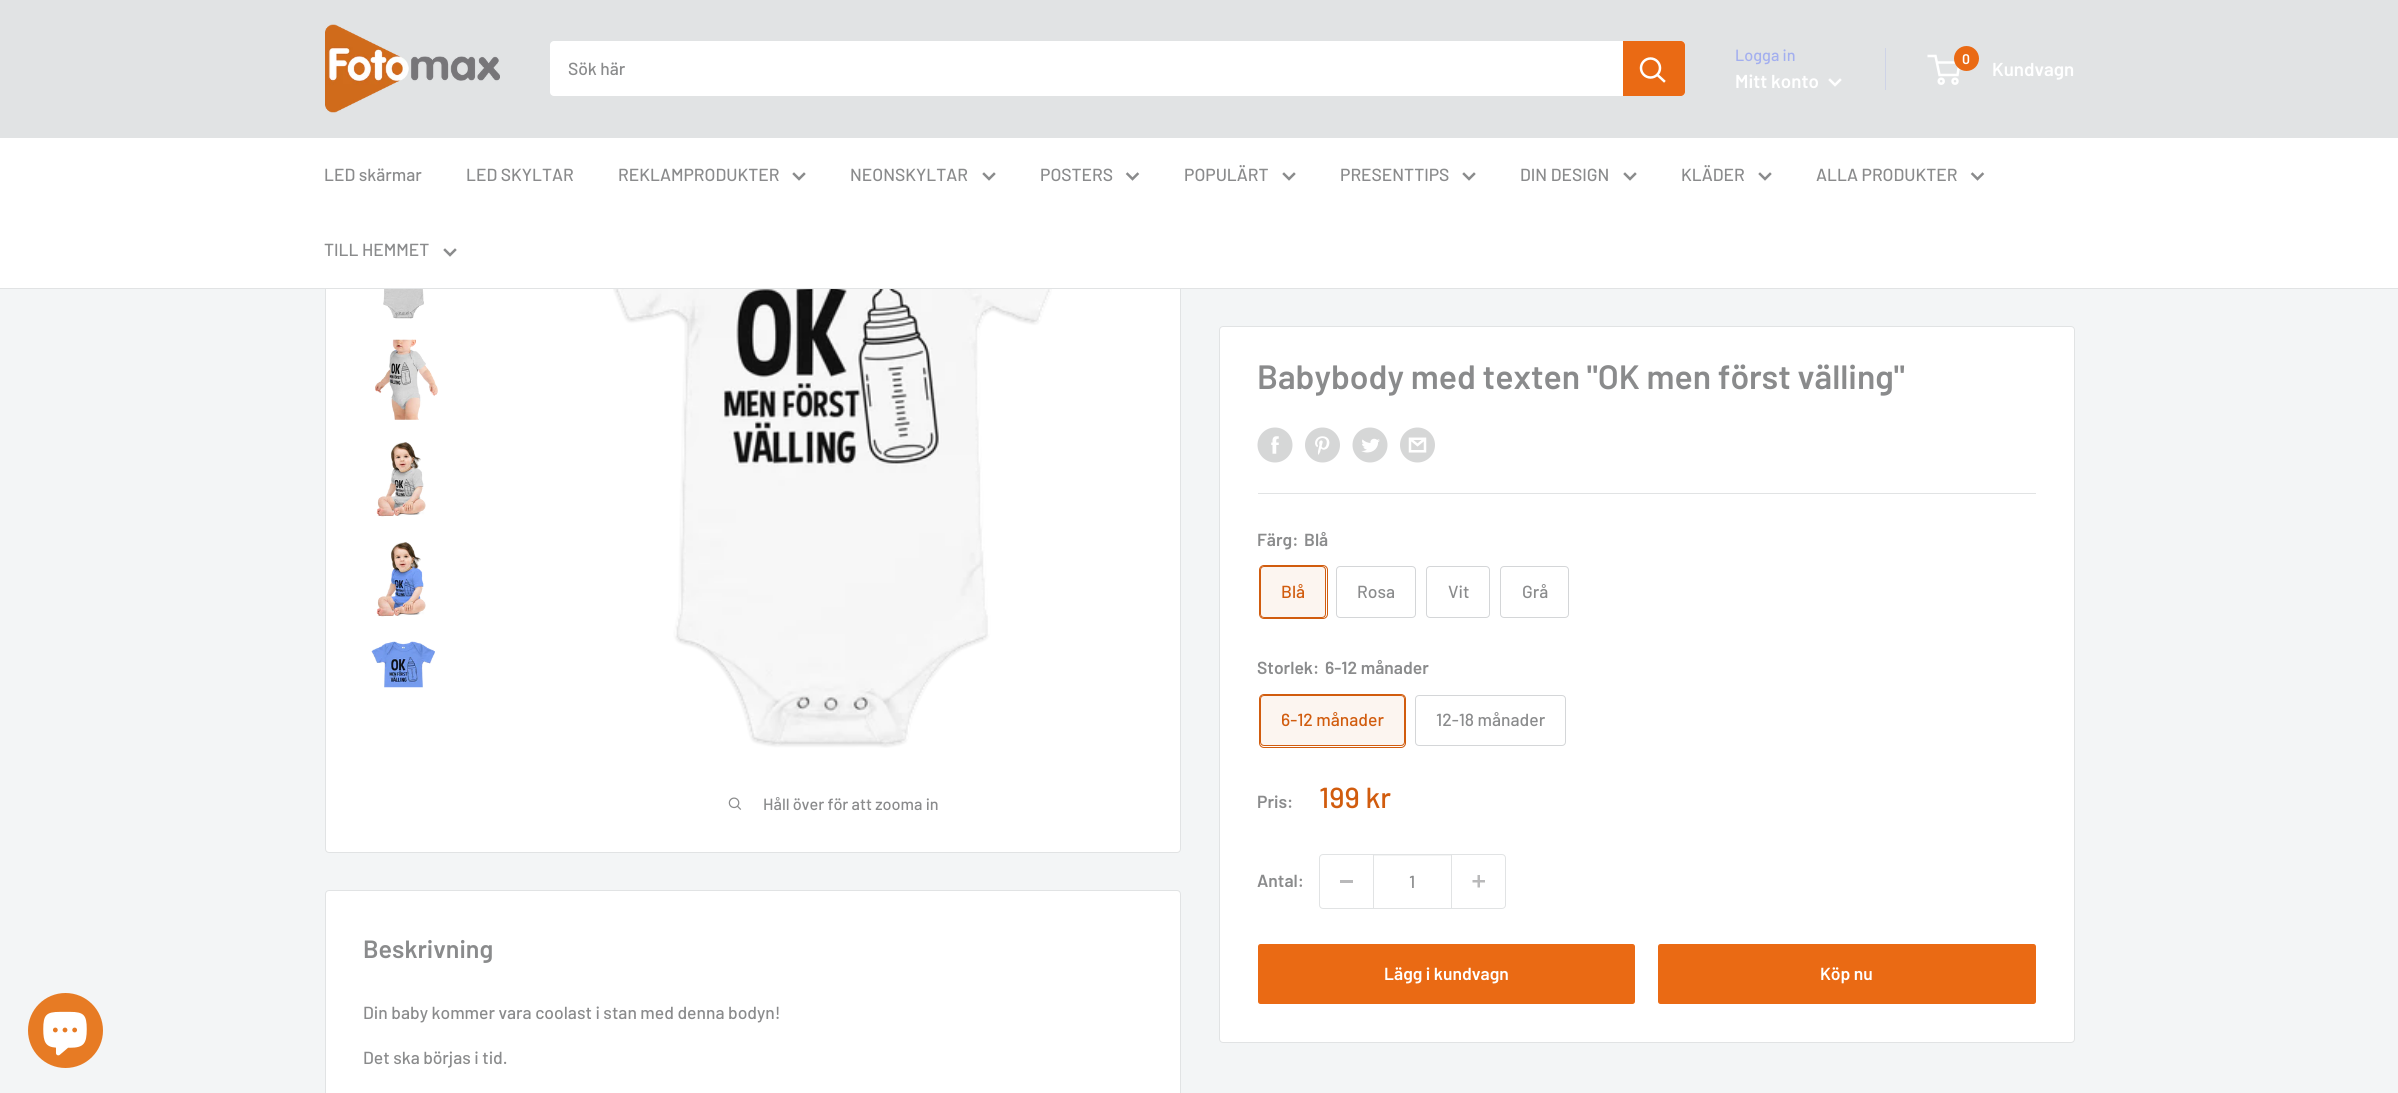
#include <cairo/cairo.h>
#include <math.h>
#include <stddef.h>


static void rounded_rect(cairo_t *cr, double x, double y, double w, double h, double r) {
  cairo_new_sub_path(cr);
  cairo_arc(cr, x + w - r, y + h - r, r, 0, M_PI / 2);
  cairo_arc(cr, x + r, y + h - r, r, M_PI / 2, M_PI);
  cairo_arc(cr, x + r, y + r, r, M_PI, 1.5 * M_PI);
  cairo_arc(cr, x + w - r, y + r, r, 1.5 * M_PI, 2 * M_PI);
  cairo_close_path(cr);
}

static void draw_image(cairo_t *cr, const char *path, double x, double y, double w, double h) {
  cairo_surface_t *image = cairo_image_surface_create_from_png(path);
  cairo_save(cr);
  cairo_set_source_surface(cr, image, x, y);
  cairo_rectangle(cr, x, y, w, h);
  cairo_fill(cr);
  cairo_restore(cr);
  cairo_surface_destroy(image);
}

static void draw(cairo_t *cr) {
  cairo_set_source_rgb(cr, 243 / 255.0, 245 / 255.0, 246 / 255.0);
  cairo_paint(cr);
  cairo_set_source_rgb(cr, 1, 1, 1);
  rounded_rect(cr, 325.5, 101.5, 855, 751, 3.5);
  cairo_fill_preserve(cr);
  cairo_set_source_rgb(cr, 225 / 255.0, 227 / 255.0, 228 / 255.0);
  cairo_set_line_width(cr, 1);
  cairo_stroke(cr);
  cairo_rectangle(cr, 0, 0, 2398, 138);
  cairo_fill(cr);
  draw_image(cr, "images/1.png", 325, 24, 175, 89);
  cairo_set_source_rgb(cr, 1, 1, 1);
  rounded_rect(cr, 550, 41, 1135, 55, 4);
  cairo_fill(cr);
  cairo_set_source_rgb(cr, 234 / 255.0, 106 / 255.0, 20 / 255.0);
  cairo_new_path(cr);
  cairo_move_to(cr, 1623, 41);
  cairo_line_to(cr, 1681, 41);
  cairo_curve_to(cr, 1683, 41, 1685, 43, 1685, 45);
  cairo_line_to(cr, 1685, 92);
  cairo_curve_to(cr, 1685, 94, 1683, 96, 1681, 96);
  cairo_line_to(cr, 1623, 96);
  cairo_close_path(cr);
  cairo_fill(cr);
  cairo_new_path(cr);
  cairo_move_to(cr, 1664, 81);
  cairo_line_to(cr, 1657.5, 75);
  cairo_set_source_rgb(cr, 1, 1, 1);
  cairo_set_line_width(cr, 2.5);
  cairo_set_line_cap(cr, CAIRO_LINE_CAP_SQUARE);
  cairo_stroke(cr);
  cairo_arc(cr, 1650.5, 68, 9.5, 0, 2 * M_PI);
  cairo_set_line_cap(cr, CAIRO_LINE_CAP_BUTT);
  cairo_stroke(cr);
  cairo_set_source_rgb(cr, 206 / 255.0, 211 / 255.0, 231 / 255.0);
  cairo_rectangle(cr, 1885, 48, 1, 42);
  cairo_fill(cr);
  cairo_new_path(cr);
  cairo_move_to(cr, 1840, 80);
  cairo_line_to(cr, 1835, 85);
  cairo_line_to(cr, 1830, 80);
  cairo_set_source_rgb(cr, 1, 1, 1);
  cairo_set_line_cap(cr, CAIRO_LINE_CAP_SQUARE);
  cairo_stroke(cr);
  cairo_arc(cr, 1941.2, 81.2, 2.5, 0, 2 * M_PI);
  cairo_set_line_cap(cr, CAIRO_LINE_CAP_BUTT);
  cairo_stroke(cr);
  cairo_arc(cr, 1955, 81.2, 2.5, 0, 2 * M_PI);
  cairo_stroke(cr);
  cairo_new_path(cr);
  cairo_move_to(cr, 1936.5, 62.5);
  cairo_line_to(cr, 1959.5, 62.5);
  cairo_line_to(cr, 1957.5, 75);
  cairo_line_to(cr, 1939.5, 75);
  cairo_line_to(cr, 1935.5, 56);
  cairo_line_to(cr, 1927.5, 56);
  cairo_stroke(cr);
  cairo_set_source_rgb(cr, 234 / 255.0, 106 / 255.0, 20 / 255.0);
  cairo_arc(cr, 1966.5, 58.5, 12.5, 0, 2 * M_PI);
  cairo_fill(cr);
  cairo_set_source_rgb(cr, 1, 1, 1);
  cairo_rectangle(cr, 0, 138, 2398, 150);
  cairo_fill(cr);
  cairo_set_source_rgb(cr, 225 / 255.0, 227 / 255.0, 228 / 255.0);
  cairo_rectangle(cr, 0, 288, 2398, 1);
  cairo_fill(cr);
  cairo_new_path(cr);
  cairo_move_to(cr, 804, 174);
  cairo_line_to(cr, 799, 179);
  cairo_line_to(cr, 794, 174);
  cairo_set_source_rgb(cr, 138 / 255.0, 139 / 255.0, 140 / 255.0);
  cairo_set_line_cap(cr, CAIRO_LINE_CAP_SQUARE);
  cairo_stroke(cr);
  cairo_new_path(cr);
  cairo_move_to(cr, 994, 174);
  cairo_line_to(cr, 989, 179);
  cairo_line_to(cr, 984, 174);
  cairo_stroke(cr);
  cairo_new_path(cr);
  cairo_move_to(cr, 1137.5, 174);
  cairo_line_to(cr, 1132.5, 179);
  cairo_line_to(cr, 1127.5, 174);
  cairo_stroke(cr);
  cairo_new_path(cr);
  cairo_move_to(cr, 1294, 174);
  cairo_line_to(cr, 1289, 179);
  cairo_line_to(cr, 1284, 174);
  cairo_stroke(cr);
  cairo_new_path(cr);
  cairo_move_to(cr, 1474, 174);
  cairo_line_to(cr, 1469, 179);
  cairo_line_to(cr, 1464, 174);
  cairo_stroke(cr);
  cairo_new_path(cr);
  cairo_move_to(cr, 1635, 174);
  cairo_line_to(cr, 1630, 179);
  cairo_line_to(cr, 1625, 174);
  cairo_stroke(cr);
  cairo_new_path(cr);
  cairo_move_to(cr, 1770, 174);
  cairo_line_to(cr, 1765, 179);
  cairo_line_to(cr, 1760, 174);
  cairo_stroke(cr);
  cairo_new_path(cr);
  cairo_move_to(cr, 1982.5, 174);
  cairo_line_to(cr, 1977.5, 179);
  cairo_line_to(cr, 1972.5, 174);
  cairo_stroke(cr);
  cairo_new_path(cr);
  cairo_move_to(cr, 455, 250);
  cairo_line_to(cr, 450, 255);
  cairo_line_to(cr, 445, 250);
  cairo_stroke(cr);
  cairo_set_source_rgb(cr, 231 / 255.0, 123 / 255.0, 36 / 255.0);
  cairo_arc(cr, 65.5, 1030.5, 37.5, 0, 2 * M_PI);
  cairo_fill(cr);
  draw_image(cr, "images/2.png", 43, 1011, 44, 45);
  draw_image(cr, "images/3.png", 383, 289, 41, 30);
  draw_image(cr, "images/4.png", 375, 339, 63, 81);
  draw_image(cr, "images/5.png", 376, 442, 50, 75);
  draw_image(cr, "images/6.png", 376, 542, 50, 75);
  draw_image(cr, "images/7.png", 371, 641, 64, 47);
  draw_image(cr, "images/8.png", 613, 289, 439, 459);
  draw_image(cr, "images/9.png", 728, 797, 14, 13);
  cairo_set_source_rgb(cr, 1, 1, 1);
  rounded_rect(cr, 1219.5, 326.5, 855, 716, 3.5);
  cairo_fill_preserve(cr);
  cairo_set_source_rgb(cr, 225 / 255.0, 227 / 255.0, 228 / 255.0);
  cairo_set_line_width(cr, 1);
  cairo_set_line_cap(cr, CAIRO_LINE_CAP_BUTT);
  cairo_stroke(cr);
  draw_image(cr, "images/10.png", 1257, 427, 36, 36);
  draw_image(cr, "images/11.png", 1305, 427, 35, 36);
  draw_image(cr, "images/12.png", 1352, 427, 36, 36);
  draw_image(cr, "images/13.png", 1400, 427, 35, 36);
  cairo_rectangle(cr, 1258, 493, 778, 1);
  cairo_fill(cr);
  rounded_rect(cr, 1259.5, 565.5, 68, 53, 4.5);
  cairo_set_source_rgb(cr, 209 / 255.0, 92 / 255.0, 14 / 255.0);
  cairo_stroke(cr);
  cairo_set_source_rgba(cr, 209 / 255.0, 92 / 255.0, 14 / 255.0, 0.06);
  cairo_rectangle(cr, 1260, 566, 66, 52);
  cairo_fill(cr);
  rounded_rect(cr, 1260.5, 566.5, 65, 51, 3.5);
  cairo_set_source_rgb(cr, 209 / 255.0, 92 / 255.0, 14 / 255.0);
  cairo_stroke(cr);
  rounded_rect(cr, 1336.5, 566.5, 79, 51, 3.5);
  cairo_set_source_rgb(cr, 212 / 255.0, 214 / 255.0, 216 / 255.0);
  cairo_stroke(cr);
  rounded_rect(cr, 1426.5, 566.5, 63, 51, 3.5);
  cairo_stroke(cr);
  rounded_rect(cr, 1500.5, 566.5, 68, 51, 3.5);
  cairo_stroke(cr);
  rounded_rect(cr, 1259.5, 694.5, 146, 53, 4.5);
  cairo_set_source_rgb(cr, 209 / 255.0, 92 / 255.0, 14 / 255.0);
  cairo_stroke(cr);
  cairo_set_source_rgba(cr, 209 / 255.0, 92 / 255.0, 14 / 255.0, 0.06);
  cairo_rectangle(cr, 1260, 695, 145, 51);
  cairo_fill(cr);
  rounded_rect(cr, 1260.5, 695.5, 144, 50, 3.5);
  cairo_set_source_rgb(cr, 209 / 255.0, 92 / 255.0, 14 / 255.0);
  cairo_stroke(cr);
  rounded_rect(cr, 1415.5, 695.5, 150, 50, 3.5);
  cairo_set_source_rgb(cr, 212 / 255.0, 214 / 255.0, 216 / 255.0);
  cairo_stroke(cr);
  rounded_rect(cr, 1319.5, 854.5, 186, 54, 3.5);
  cairo_set_source_rgb(cr, 225 / 255.0, 227 / 255.0, 228 / 255.0);
  cairo_stroke(cr);
  cairo_set_source_rgb(cr, 185 / 255.0, 185 / 255.0, 186 / 255.0);
  cairo_rectangle(cr, 1340, 880, 13, 3);
  cairo_fill(cr);
  cairo_set_source_rgb(cr, 243 / 255.0, 244 / 255.0, 244 / 255.0);
  cairo_rectangle(cr, 1374, 855, 77, 1);
  cairo_fill(cr);
  cairo_set_source_rgb(cr, 225 / 255.0, 227 / 255.0, 228 / 255.0);
  cairo_rectangle(cr, 1451, 855, 1, 53);
  cairo_fill(cr);
  cairo_rectangle(cr, 1373, 855, 1, 53);
  cairo_fill(cr);
  draw_image(cr, "images/14.png", 1472, 875, 13, 13);
  cairo_set_source_rgb(cr, 234 / 255.0, 106 / 255.0, 20 / 255.0);
  rounded_rect(cr, 1258, 944, 377, 60, 2.5);
  cairo_fill(cr);
  rounded_rect(cr, 1658, 944, 378, 60, 2.5);
  cairo_fill(cr);
  cairo_set_source_rgb(cr, 1, 1, 1);
  rounded_rect(cr, 325.5, 890.5, 855, 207, 3.5);
  cairo_fill_preserve(cr);
  cairo_set_source_rgb(cr, 225 / 255.0, 227 / 255.0, 228 / 255.0);
  cairo_stroke(cr);
  cairo_select_font_face(cr, "Barlow Medium", CAIRO_FONT_SLANT_NORMAL, CAIRO_FONT_WEIGHT_NORMAL);
  cairo_set_font_size(cr, 17.5);
  cairo_set_source_rgb(cr, 138 / 255.0, 139 / 255.0, 140 / 255.0);
  cairo_move_to(cr, 568, 75);
  cairo_show_text(cr, "Sök här");
  cairo_set_font_size(cr, 16.25);
  cairo_set_source_rgb(cr, 163 / 255.0, 175 / 255.0, 239 / 255.0);
  cairo_move_to(cr, 1735, 61);
  cairo_show_text(cr, "Logga in");
  cairo_select_font_face(cr, "Barlow SemiBold", CAIRO_FONT_SLANT_NORMAL, CAIRO_FONT_WEIGHT_NORMAL);
  cairo_set_font_size(cr, 18.75);
  cairo_set_source_rgb(cr, 1, 1, 1);
  cairo_move_to(cr, 1735, 88);
  cairo_show_text(cr, "Mitt konto");
  cairo_set_font_size(cr, 14);
  cairo_move_to(cr, 1962, 64);
  cairo_show_text(cr, "0");
  cairo_set_font_size(cr, 18.75);
  cairo_move_to(cr, 1992, 76);
  cairo_show_text(cr, "Kundvagn");
  cairo_select_font_face(cr, "Barlow Medium", CAIRO_FONT_SLANT_NORMAL, CAIRO_FONT_WEIGHT_NORMAL);
  cairo_set_font_size(cr, 17.5);
  cairo_set_source_rgb(cr, 138 / 255.0, 139 / 255.0, 140 / 255.0);
  cairo_move_to(cr, 324, 181);
  cairo_show_text(cr, "LED skärmar");
  cairo_move_to(cr, 466, 181);
  cairo_show_text(cr, "LED SKYLTAR");
  cairo_move_to(cr, 618, 181);
  cairo_show_text(cr, "REKLAMPRODUKTER");
  cairo_move_to(cr, 850, 181);
  cairo_show_text(cr, "NEONSKYLTAR");
  cairo_move_to(cr, 1040, 181);
  cairo_show_text(cr, "POSTERS");
  cairo_move_to(cr, 1184, 181);
  cairo_show_text(cr, "POPULÄRT");
  cairo_move_to(cr, 1340, 181);
  cairo_show_text(cr, "PRESENTTIPS");
  cairo_move_to(cr, 1520, 181);
  cairo_show_text(cr, "DIN DESIGN");
  cairo_move_to(cr, 1681, 181);
  cairo_show_text(cr, "KLÄDER");
  cairo_move_to(cr, 1816, 181);
  cairo_show_text(cr, "ALLA PRODUKTER");
  cairo_move_to(cr, 324, 256);
  cairo_show_text(cr, "TILL HEMMET");
  cairo_set_font_size(cr, 16.25);
  cairo_move_to(cr, 763, 810);
  cairo_show_text(cr, "Håll över för att zooma in");
  cairo_select_font_face(cr, "Barlow SemiBold", CAIRO_FONT_SLANT_NORMAL, CAIRO_FONT_WEIGHT_NORMAL);
  cairo_set_font_size(cr, 33.75);
  cairo_move_to(cr, 1257, 389);
  cairo_show_text(cr, "Babybody med texten \"OK men först välling\"");
  cairo_set_font_size(cr, 17.5);
  cairo_move_to(cr, 1257, 546);
  cairo_show_text(cr, "Färg:");
  cairo_move_to(cr, 1304, 546);
  cairo_show_text(cr, "Blå");
  cairo_select_font_face(cr, "Barlow Medium", CAIRO_FONT_SLANT_NORMAL, CAIRO_FONT_WEIGHT_NORMAL);
  cairo_set_source_rgb(cr, 209 / 255.0, 92 / 255.0, 14 / 255.0);
  cairo_move_to(cr, 1281, 598);
  cairo_show_text(cr, "Blå");
  cairo_set_source_rgb(cr, 138 / 255.0, 139 / 255.0, 140 / 255.0);
  cairo_move_to(cr, 1357, 598);
  cairo_show_text(cr, "Rosa");
  cairo_move_to(cr, 1448, 598);
  cairo_show_text(cr, "Vit");
  cairo_move_to(cr, 1522, 598);
  cairo_show_text(cr, "Grå");
  cairo_select_font_face(cr, "Barlow SemiBold", CAIRO_FONT_SLANT_NORMAL, CAIRO_FONT_WEIGHT_NORMAL);
  cairo_move_to(cr, 1257, 674);
  cairo_show_text(cr, "Storlek:");
  cairo_move_to(cr, 1325, 674);
  cairo_show_text(cr, "6-12 månader");
  cairo_select_font_face(cr, "Barlow Medium", CAIRO_FONT_SLANT_NORMAL, CAIRO_FONT_WEIGHT_NORMAL);
  cairo_set_source_rgb(cr, 209 / 255.0, 92 / 255.0, 14 / 255.0);
  cairo_move_to(cr, 1281, 726);
  cairo_show_text(cr, "6-12 månader");
  cairo_set_source_rgb(cr, 138 / 255.0, 139 / 255.0, 140 / 255.0);
  cairo_move_to(cr, 1436, 726);
  cairo_show_text(cr, "12-18 månader");
  cairo_select_font_face(cr, "Barlow SemiBold", CAIRO_FONT_SLANT_NORMAL, CAIRO_FONT_WEIGHT_NORMAL);
  cairo_move_to(cr, 1257, 808);
  cairo_show_text(cr, "Pris:");
  cairo_select_font_face(cr, "Barlow Medium", CAIRO_FONT_SLANT_NORMAL, CAIRO_FONT_WEIGHT_NORMAL);
  cairo_set_font_size(cr, 29);
  cairo_set_source_rgb(cr, 209 / 255.0, 92 / 255.0, 14 / 255.0);
  cairo_move_to(cr, 1319, 808);
  cairo_show_text(cr, "199 kr");
  cairo_select_font_face(cr, "Barlow SemiBold", CAIRO_FONT_SLANT_NORMAL, CAIRO_FONT_WEIGHT_NORMAL);
  cairo_set_font_size(cr, 17.5);
  cairo_set_source_rgb(cr, 138 / 255.0, 139 / 255.0, 140 / 255.0);
  cairo_move_to(cr, 1257, 887);
  cairo_show_text(cr, "Antal:");
  cairo_select_font_face(cr, "Barlow Medium", CAIRO_FONT_SLANT_NORMAL, CAIRO_FONT_WEIGHT_NORMAL);
  cairo_move_to(cr, 1409, 888);
  cairo_show_text(cr, "1");
  cairo_select_font_face(cr, "Barlow SemiBold", CAIRO_FONT_SLANT_NORMAL, CAIRO_FONT_WEIGHT_NORMAL);
  cairo_set_source_rgb(cr, 1, 1, 1);
  cairo_move_to(cr, 1384, 980);
  cairo_show_text(cr, "Lägg i kundvagn");
  cairo_move_to(cr, 1820, 980);
  cairo_show_text(cr, "Köp nu");
  cairo_set_font_size(cr, 25);
  cairo_set_source_rgb(cr, 138 / 255.0, 139 / 255.0, 140 / 255.0);
  cairo_move_to(cr, 363, 958);
  cairo_show_text(cr, "Beskrivning");
  cairo_select_font_face(cr, "Barlow Medium", CAIRO_FONT_SLANT_NORMAL, CAIRO_FONT_WEIGHT_NORMAL);
  cairo_set_font_size(cr, 17.5);
  cairo_move_to(cr, 363, 1019);
  cairo_show_text(cr, "Din baby kommer vara coolast i stan med denna bodyn!");
  cairo_move_to(cr, 363, 1064);
  cairo_show_text(cr, "Det ska börjas i tid.");
}

int main(void) {
  cairo_surface_t *surface = cairo_image_surface_create(CAIRO_FORMAT_RGB24, 2398, 1093);
  cairo_t *cr = cairo_create(surface);
  cairo_font_options_t *options = cairo_font_options_create();
  cairo_font_options_set_hint_metrics(options, CAIRO_HINT_METRICS_OFF);
  cairo_font_options_set_hint_style(options, CAIRO_HINT_STYLE_NONE);
  cairo_set_font_options(cr, options);
  cairo_set_miter_limit(cr, 4);
  draw(cr);
  cairo_surface_write_to_png(surface, "out.png");
  cairo_font_options_destroy(options);
  cairo_destroy(cr);
  cairo_surface_destroy(surface);
  return 0;
}
